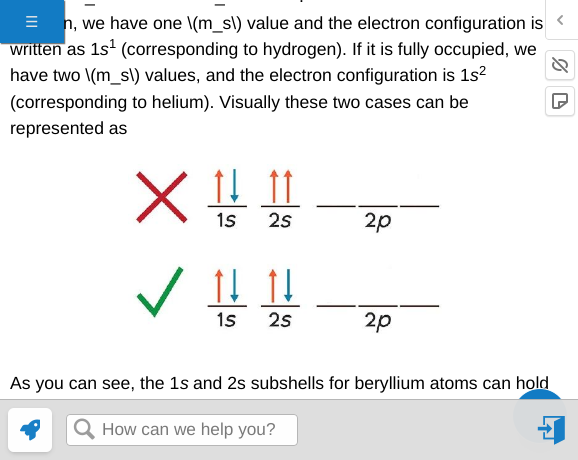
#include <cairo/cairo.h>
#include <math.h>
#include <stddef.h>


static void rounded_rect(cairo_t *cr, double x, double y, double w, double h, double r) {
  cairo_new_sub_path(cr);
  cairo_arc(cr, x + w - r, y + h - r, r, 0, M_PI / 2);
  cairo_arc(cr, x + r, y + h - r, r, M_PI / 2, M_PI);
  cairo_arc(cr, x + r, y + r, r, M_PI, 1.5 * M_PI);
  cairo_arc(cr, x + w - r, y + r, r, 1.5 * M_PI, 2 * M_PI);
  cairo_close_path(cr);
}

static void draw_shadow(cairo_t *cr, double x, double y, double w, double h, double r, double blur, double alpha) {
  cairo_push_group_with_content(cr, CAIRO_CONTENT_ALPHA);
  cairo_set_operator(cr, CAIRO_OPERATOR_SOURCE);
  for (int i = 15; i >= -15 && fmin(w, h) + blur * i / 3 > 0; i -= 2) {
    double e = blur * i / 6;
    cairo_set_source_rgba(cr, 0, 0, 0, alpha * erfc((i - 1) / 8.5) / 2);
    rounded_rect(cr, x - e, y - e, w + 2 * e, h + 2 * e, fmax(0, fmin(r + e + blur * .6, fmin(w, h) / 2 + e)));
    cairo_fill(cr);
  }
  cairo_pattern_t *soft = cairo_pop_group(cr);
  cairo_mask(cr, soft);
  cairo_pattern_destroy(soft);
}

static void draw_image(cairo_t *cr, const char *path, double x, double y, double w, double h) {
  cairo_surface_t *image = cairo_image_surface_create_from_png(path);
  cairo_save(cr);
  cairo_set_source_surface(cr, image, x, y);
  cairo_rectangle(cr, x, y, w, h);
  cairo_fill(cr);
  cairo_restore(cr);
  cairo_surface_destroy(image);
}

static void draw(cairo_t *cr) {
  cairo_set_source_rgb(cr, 1, 1, 1);
  cairo_paint(cr);
  draw_image(cr, "images/1.png", 128, 164, 314, 170);
  cairo_set_source_rgb(cr, 0, 0, 0);
  draw_shadow(cr, 518, 402, 44, 44, 22, 5, 0.1);
  draw_shadow(cr, 517, 413, 46, 46, 23, 12.5, 0.1);
  cairo_set_source_rgb(cr, 219 / 255.0, 219 / 255.0, 219 / 255.0);
  cairo_set_fill_rule(cr, CAIRO_FILL_RULE_EVEN_ODD);
  cairo_new_path(cr);
  cairo_move_to(cr, 545, 0);
  cairo_line_to(cr, 578, 0);
  cairo_line_to(cr, 578, 40);
  cairo_line_to(cr, 549, 40);
  cairo_curve_to(cr, 547, 40, 545, 38, 545, 36);
  cairo_close_path(cr);
  cairo_move_to(cr, 546, 0);
  cairo_line_to(cr, 578, 0);
  cairo_line_to(cr, 578, 39);
  cairo_line_to(cr, 549, 39);
  cairo_curve_to(cr, 547, 39, 546, 38, 546, 36);
  cairo_close_path(cr);
  cairo_fill(cr);
  draw_image(cr, "images/5.png", 557, 15, 6, 10);
  cairo_set_source_rgb(cr, 0, 0, 0);
  draw_shadow(cr, 545, 51, 30, 30, 4, 0.5, 0.1);
  cairo_set_source_rgb(cr, 1, 1, 1);
  rounded_rect(cr, 545.5, 50.5, 29, 29, 3.5);
  cairo_fill_preserve(cr);
  cairo_set_source_rgb(cr, 219 / 255.0, 219 / 255.0, 219 / 255.0);
  cairo_set_line_width(cr, 1);
  cairo_stroke(cr);
  draw_image(cr, "images/6.png", 552, 57, 16, 16);
  cairo_set_source_rgb(cr, 0, 0, 0);
  draw_shadow(cr, 545, 87, 30, 30, 4, 0.5, 0.1);
  cairo_set_source_rgb(cr, 1, 1, 1);
  rounded_rect(cr, 545.5, 86.5, 29, 29, 3.5);
  cairo_fill_preserve(cr);
  cairo_set_source_rgb(cr, 219 / 255.0, 219 / 255.0, 219 / 255.0);
  cairo_stroke(cr);
  draw_image(cr, "images/7.png", 552, 93, 16, 16);
  cairo_set_source_rgb(cr, 0, 0, 0);
  draw_shadow(cr, 1, 1, 64, 43, 0, 0.5, 0.6);
  cairo_select_font_face(cr, "Liberation Sans", CAIRO_FONT_SLANT_NORMAL, CAIRO_FONT_WEIGHT_NORMAL);
  cairo_set_font_size(cr, 17.6);
  cairo_set_source_rgb(cr, 0, 0, 0);
  cairo_move_to(cr, 299, 2);
  cairo_show_text(cr, ".");
  cairo_move_to(cr, 85, 2);
  cairo_show_text(cr, "_");
  cairo_move_to(cr, 215, 2);
  cairo_show_text(cr, "_");
  cairo_move_to(cr, 63, 29);
  cairo_show_text(cr, "n, we have one \\(m_s\\) value and the electron configuration is");
  cairo_move_to(cr, 10, 55);
  cairo_show_text(cr, "written as 1");
  cairo_select_font_face(cr, "Liberation Sans", CAIRO_FONT_SLANT_ITALIC, CAIRO_FONT_WEIGHT_NORMAL);
  cairo_move_to(cr, 100, 55);
  cairo_show_text(cr, "s");
  cairo_select_font_face(cr, "Liberation Sans", CAIRO_FONT_SLANT_NORMAL, CAIRO_FONT_WEIGHT_NORMAL);
  cairo_set_font_size(cr, 13);
  cairo_move_to(cr, 109, 48);
  cairo_show_text(cr, "1");
  cairo_set_font_size(cr, 17.6);
  cairo_move_to(cr, 121, 55);
  cairo_show_text(cr, "(corresponding to hydrogen). If it is fully occupied, we");
  cairo_move_to(cr, 10, 81);
  cairo_show_text(cr, "have two \\(m_s\\) values, and the electron configuration is 1");
  cairo_select_font_face(cr, "Liberation Sans", CAIRO_FONT_SLANT_ITALIC, CAIRO_FONT_WEIGHT_NORMAL);
  cairo_move_to(cr, 470, 81);
  cairo_show_text(cr, "s");
  cairo_select_font_face(cr, "Liberation Sans", CAIRO_FONT_SLANT_NORMAL, CAIRO_FONT_WEIGHT_NORMAL);
  cairo_set_font_size(cr, 13);
  cairo_move_to(cr, 479, 75);
  cairo_show_text(cr, "2");
  cairo_set_font_size(cr, 17.6);
  cairo_move_to(cr, 10, 108);
  cairo_show_text(cr, "(corresponding to helium). Visually these two cases can be");
  cairo_move_to(cr, 10, 134);
  cairo_show_text(cr, "represented as");
  cairo_move_to(cr, 10, 389);
  cairo_show_text(cr, "As you can see, the 1");
  cairo_select_font_face(cr, "Liberation Sans", CAIRO_FONT_SLANT_ITALIC, CAIRO_FONT_WEIGHT_NORMAL);
  cairo_move_to(cr, 180, 389);
  cairo_show_text(cr, "s");
  cairo_select_font_face(cr, "Liberation Sans", CAIRO_FONT_SLANT_NORMAL, CAIRO_FONT_WEIGHT_NORMAL);
  cairo_move_to(cr, 193, 389);
  cairo_show_text(cr, "and 2s subshells for beryllium atoms can hold");
  cairo_set_source_rgb(cr, 18 / 255.0, 123 / 255.0, 196 / 255.0);
  cairo_new_path(cr);
  cairo_arc(cr, 540, 416, 27.5, 0, 2 * M_PI);
  cairo_fill_preserve(cr);
  cairo_set_source_rgb(cr, 1, 1, 1);
  cairo_stroke(cr);
  cairo_set_source_rgba(cr, 221 / 255.0, 221 / 255.0, 221 / 255.0, 0.97);
  cairo_rectangle(cr, 0, 400, 578, 60);
  cairo_fill(cr);
  cairo_set_source_rgba(cr, 1, 1, 1, 0.97);
  rounded_rect(cr, 66, 414, 232, 32, 4);
  cairo_fill(cr);
  rounded_rect(cr, 66.5, 414.5, 231, 31, 3.5);
  cairo_set_source_rgba(cr, 180 / 255.0, 180 / 255.0, 180 / 255.0, 0.97);
  cairo_stroke(cr);
  draw_image(cr, "images/3.png", 73, 418, 22, 22);
  draw_image(cr, "images/4.png", 537, 416, 28, 29);
  cairo_set_font_size(cr, 17.25);
  cairo_set_source_rgb(cr, 121 / 255.0, 121 / 255.0, 121 / 255.0);
  cairo_move_to(cr, 102, 435);
  cairo_show_text(cr, "How can we help you?");
  cairo_save(cr);
  cairo_new_path(cr);
  cairo_move_to(cr, 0, 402);
  cairo_line_to(cr, 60, 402);
  cairo_line_to(cr, 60, 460);
  cairo_line_to(cr, 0, 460);
  cairo_close_path(cr);
  cairo_move_to(cr, 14, 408);
  cairo_line_to(cr, 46, 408);
  cairo_curve_to(cr, 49.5, 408, 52, 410.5, 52, 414);
  cairo_line_to(cr, 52, 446);
  cairo_curve_to(cr, 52, 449.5, 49.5, 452, 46, 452);
  cairo_line_to(cr, 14, 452);
  cairo_curve_to(cr, 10.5, 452, 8, 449.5, 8, 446);
  cairo_line_to(cr, 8, 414);
  cairo_curve_to(cr, 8, 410.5, 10.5, 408, 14, 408);
  cairo_close_path(cr);
  cairo_clip(cr);
  cairo_set_source_rgb(cr, 0, 0, 0);
  draw_shadow(cr, 9, 411, 42, 42, 5, 2.5, 0.19);
  cairo_restore(cr);
  cairo_set_source_rgba(cr, 1, 1, 1, 0.97);
  rounded_rect(cr, 8, 408, 44, 44, 6);
  cairo_fill(cr);
  draw_image(cr, "images/2.png", 20, 419, 20, 22);
  cairo_set_source_rgba(cr, 180 / 255.0, 180 / 255.0, 180 / 255.0, 0.97);
  cairo_rectangle(cr, 0, 399, 578, 1);
  cairo_fill(cr);
  cairo_set_source_rgb(cr, 18 / 255.0, 123 / 255.0, 196 / 255.0);
  cairo_rectangle(cr, 0, 0, 64, 43);
  cairo_fill(cr);
  cairo_select_font_face(cr, "DejaVu Sans", CAIRO_FONT_SLANT_NORMAL, CAIRO_FONT_WEIGHT_NORMAL);
  cairo_set_font_size(cr, 15);
  cairo_set_source_rgb(cr, 229 / 255.0, 229 / 255.0, 229 / 255.0);
  cairo_move_to(cr, 25, 27);
  cairo_show_text(cr, "☰");
}

int main(void) {
  cairo_surface_t *surface = cairo_image_surface_create(CAIRO_FORMAT_RGB24, 578, 460);
  cairo_t *cr = cairo_create(surface);
  cairo_font_options_t *options = cairo_font_options_create();
  cairo_font_options_set_hint_metrics(options, CAIRO_HINT_METRICS_OFF);
  cairo_font_options_set_hint_style(options, CAIRO_HINT_STYLE_NONE);
  cairo_set_font_options(cr, options);
  cairo_set_miter_limit(cr, 4);
  draw(cr);
  cairo_surface_write_to_png(surface, "out.png");
  cairo_font_options_destroy(options);
  cairo_destroy(cr);
  cairo_surface_destroy(surface);
  return 0;
}
